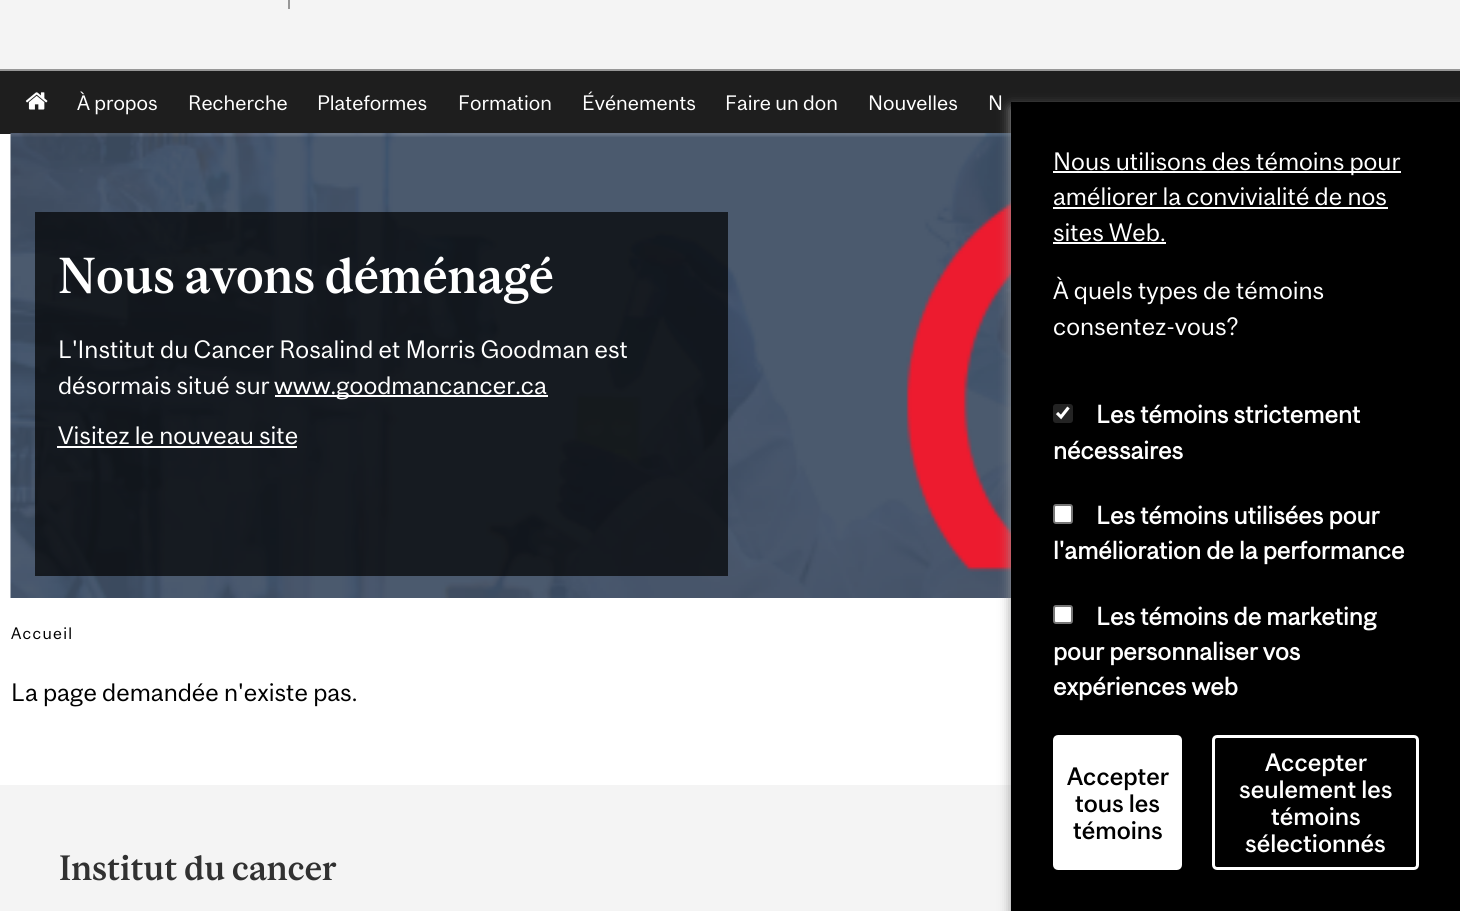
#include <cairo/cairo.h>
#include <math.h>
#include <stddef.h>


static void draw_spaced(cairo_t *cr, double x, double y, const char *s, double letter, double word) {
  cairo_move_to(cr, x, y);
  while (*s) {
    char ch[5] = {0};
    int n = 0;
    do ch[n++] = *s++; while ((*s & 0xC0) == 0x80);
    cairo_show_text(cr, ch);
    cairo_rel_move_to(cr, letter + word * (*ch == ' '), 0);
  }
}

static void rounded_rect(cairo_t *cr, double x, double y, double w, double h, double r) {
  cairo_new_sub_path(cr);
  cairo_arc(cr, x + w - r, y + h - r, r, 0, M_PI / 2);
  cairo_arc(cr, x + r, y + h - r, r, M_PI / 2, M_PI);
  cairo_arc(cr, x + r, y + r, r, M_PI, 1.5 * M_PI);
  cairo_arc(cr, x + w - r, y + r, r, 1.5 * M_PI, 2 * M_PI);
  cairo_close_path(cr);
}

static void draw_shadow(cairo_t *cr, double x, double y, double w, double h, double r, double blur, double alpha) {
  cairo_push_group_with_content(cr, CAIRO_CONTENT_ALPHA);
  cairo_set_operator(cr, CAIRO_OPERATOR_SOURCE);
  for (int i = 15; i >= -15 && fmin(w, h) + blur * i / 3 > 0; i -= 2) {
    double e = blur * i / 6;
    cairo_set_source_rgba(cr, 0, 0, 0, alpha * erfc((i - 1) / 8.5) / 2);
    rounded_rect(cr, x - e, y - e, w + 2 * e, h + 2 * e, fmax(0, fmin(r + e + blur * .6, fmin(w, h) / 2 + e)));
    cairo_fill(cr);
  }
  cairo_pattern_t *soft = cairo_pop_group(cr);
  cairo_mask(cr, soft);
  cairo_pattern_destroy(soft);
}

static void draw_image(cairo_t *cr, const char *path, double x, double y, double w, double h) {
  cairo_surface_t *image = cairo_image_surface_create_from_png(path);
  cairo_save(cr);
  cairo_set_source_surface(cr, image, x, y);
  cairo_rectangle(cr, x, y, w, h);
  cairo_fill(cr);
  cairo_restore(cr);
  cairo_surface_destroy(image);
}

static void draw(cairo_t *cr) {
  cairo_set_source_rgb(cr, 1, 1, 1);
  cairo_paint(cr);
  cairo_set_source_rgb(cr, 244 / 255.0, 244 / 255.0, 244 / 255.0);
  cairo_rectangle(cr, 0, 0, 1460, 69);
  cairo_fill(cr);
  cairo_set_source_rgb(cr, 151 / 255.0, 151 / 255.0, 151 / 255.0);
  cairo_rectangle(cr, 0, 69, 1460, 2);
  cairo_fill(cr);
  cairo_rectangle(cr, 288, 0, 2, 9);
  cairo_fill(cr);
  cairo_set_source_rgb(cr, 30 / 255.0, 30 / 255.0, 30 / 255.0);
  cairo_rectangle(cr, 0, 71, 1460, 63);
  cairo_fill(cr);
  draw_image(cr, "images/1.png", 25, 92, 23, 18);
  draw_image(cr, "images/2.png", 10, 133, 1001, 465);
  cairo_set_source_rgba(cr, 0, 0, 0, 0.7);
  cairo_rectangle(cr, 35, 212, 693, 364);
  cairo_fill(cr);
  cairo_set_source_rgb(cr, 1, 1, 1);
  cairo_rectangle(cr, 275, 395, 273, 2);
  cairo_fill(cr);
  cairo_rectangle(cr, 57, 446, 240, 2);
  cairo_fill(cr);
  cairo_set_source_rgb(cr, 244 / 255.0, 244 / 255.0, 244 / 255.0);
  cairo_rectangle(cr, 0, 785, 1011, 126);
  cairo_fill(cr);
  cairo_set_source_rgb(cr, 151 / 255.0, 151 / 255.0, 153 / 255.0);
  draw_shadow(cr, 1011, 108, 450, 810, 0, 6, 1);
  cairo_set_source_rgb(cr, 0, 0, 0);
  cairo_rectangle(cr, 1011, 102, 449, 809);
  cairo_fill(cr);
  cairo_set_source_rgb(cr, 1, 1, 1);
  cairo_rectangle(cr, 1053, 171, 348, 2);
  cairo_fill(cr);
  cairo_rectangle(cr, 1053, 207, 335, 2);
  cairo_fill(cr);
  cairo_rectangle(cr, 1053, 242, 113, 2);
  cairo_fill(cr);
  cairo_set_source_rgb(cr, 35 / 255.0, 35 / 255.0, 35 / 255.0);
  rounded_rect(cr, 1053, 404, 20, 19, 3);
  cairo_fill(cr);
  cairo_new_path(cr);
  cairo_move_to(cr, 1057, 413);
  cairo_line_to(cr, 1061, 417);
  cairo_line_to(cr, 1068.5, 407.5);
  cairo_set_source_rgb(cr, 1, 1, 1);
  cairo_set_line_width(cr, 3.1);
  cairo_stroke(cr);
  rounded_rect(cr, 1054, 505, 18, 18, 2);
  cairo_fill_preserve(cr);
  cairo_set_source_rgb(cr, 118 / 255.0, 118 / 255.0, 118 / 255.0);
  cairo_set_line_width(cr, 2);
  cairo_stroke(cr);
  cairo_set_source_rgb(cr, 1, 1, 1);
  rounded_rect(cr, 1054, 606, 18, 17, 2);
  cairo_fill_preserve(cr);
  cairo_set_source_rgb(cr, 118 / 255.0, 118 / 255.0, 118 / 255.0);
  cairo_stroke(cr);
  cairo_set_source_rgb(cr, 1, 1, 1);
  rounded_rect(cr, 1054.5, 736.5, 126, 132, 3.5);
  cairo_fill_preserve(cr);
  cairo_set_line_width(cr, 3);
  cairo_stroke(cr);
  rounded_rect(cr, 1213.5, 736.5, 204, 132, 3.5);
  cairo_stroke(cr);
  cairo_select_font_face(cr, "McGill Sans", CAIRO_FONT_SLANT_NORMAL, CAIRO_FONT_WEIGHT_NORMAL);
  cairo_set_font_size(cr, 19.5);
  cairo_move_to(cr, 77, 110);
  cairo_show_text(cr, "À propos");
  cairo_move_to(cr, 188, 110);
  cairo_show_text(cr, "Recherche");
  cairo_move_to(cr, 317, 110);
  cairo_show_text(cr, "Plateformes");
  cairo_move_to(cr, 458, 110);
  cairo_show_text(cr, "Formation");
  cairo_move_to(cr, 582, 110);
  cairo_show_text(cr, "Événements");
  cairo_move_to(cr, 725, 110);
  cairo_show_text(cr, "Faire un don");
  cairo_move_to(cr, 868, 110);
  cairo_show_text(cr, "Nouvelles");
  cairo_move_to(cr, 988, 110);
  cairo_show_text(cr, "N");
  cairo_select_font_face(cr, "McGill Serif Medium", CAIRO_FONT_SLANT_NORMAL, CAIRO_FONT_WEIGHT_NORMAL);
  cairo_set_font_size(cr, 47);
  cairo_move_to(cr, 58, 293);
  cairo_show_text(cr, "Nous avons déménagé");
  cairo_select_font_face(cr, "McGill Sans", CAIRO_FONT_SLANT_NORMAL, CAIRO_FONT_WEIGHT_NORMAL);
  cairo_set_font_size(cr, 23.5);
  cairo_move_to(cr, 58, 358);
  cairo_show_text(cr, "L'Institut du Cancer Rosalind et Morris Goodman est");
  cairo_move_to(cr, 58, 394);
  cairo_show_text(cr, "désormais situé sur");
  cairo_move_to(cr, 274, 394);
  cairo_show_text(cr, "www.goodmancancer.ca");
  cairo_move_to(cr, 58, 444);
  cairo_show_text(cr, "Visitez le nouveau site");
  cairo_move_to(cr, 1053, 170);
  cairo_show_text(cr, "Nous utilisons des témoins pour");
  cairo_move_to(cr, 1053, 205);
  cairo_show_text(cr, "améliorer la convivialité de nos");
  cairo_move_to(cr, 1053, 241);
  cairo_show_text(cr, "sites Web.");
  cairo_move_to(cr, 1053, 299);
  cairo_show_text(cr, "À quels types de témoins");
  cairo_move_to(cr, 1053, 335);
  cairo_show_text(cr, "consentez-vous?");
  cairo_select_font_face(cr, "McGill Sans", CAIRO_FONT_SLANT_NORMAL, CAIRO_FONT_WEIGHT_BOLD);
  cairo_move_to(cr, 1096, 423);
  cairo_show_text(cr, "Les témoins strictement");
  cairo_move_to(cr, 1053, 459);
  cairo_show_text(cr, "nécessaires");
  cairo_move_to(cr, 1096, 524);
  cairo_show_text(cr, "Les témoins utilisées pour");
  cairo_move_to(cr, 1053, 559);
  cairo_show_text(cr, "l'amélioration de la performance");
  cairo_move_to(cr, 1096, 625);
  cairo_show_text(cr, "Les témoins de marketing");
  cairo_move_to(cr, 1053, 660);
  cairo_show_text(cr, "pour personnaliser vos");
  cairo_move_to(cr, 1053, 695);
  cairo_show_text(cr, "expériences web");
  cairo_select_font_face(cr, "McGill Sans Medium", CAIRO_FONT_SLANT_NORMAL, CAIRO_FONT_WEIGHT_NORMAL);
  cairo_set_source_rgb(cr, 0, 0, 0);
  cairo_move_to(cr, 1067, 785);
  cairo_show_text(cr, "Accepter");
  cairo_move_to(cr, 1075, 812);
  cairo_show_text(cr, "tous les");
  cairo_move_to(cr, 1073, 839);
  cairo_show_text(cr, "témoins");
  cairo_set_source_rgb(cr, 1, 1, 1);
  cairo_move_to(cr, 1265, 771);
  cairo_show_text(cr, "Accepter");
  cairo_move_to(cr, 1239, 798);
  cairo_show_text(cr, "seulement les");
  cairo_move_to(cr, 1271, 825);
  cairo_show_text(cr, "témoins");
  cairo_move_to(cr, 1245, 852);
  cairo_show_text(cr, "sélectionnés");
  cairo_select_font_face(cr, "McGill Sans", CAIRO_FONT_SLANT_NORMAL, CAIRO_FONT_WEIGHT_NORMAL);
  cairo_set_font_size(cr, 15.5);
  cairo_set_source_rgb(cr, 0, 0, 0);
  draw_spaced(cr, 11, 639, "Accueil", 1.25, 0);
  cairo_set_font_size(cr, 23.5);
  cairo_move_to(cr, 11, 701);
  cairo_show_text(cr, "La page demandée n'existe pas.");
  cairo_select_font_face(cr, "McGill Serif Medium", CAIRO_FONT_SLANT_NORMAL, CAIRO_FONT_WEIGHT_NORMAL);
  cairo_set_font_size(cr, 32.75);
  cairo_set_source_rgb(cr, 49 / 255.0, 49 / 255.0, 49 / 255.0);
  cairo_move_to(cr, 59, 880);
  cairo_show_text(cr, "Institut du cancer");
}

int main(void) {
  cairo_surface_t *surface = cairo_image_surface_create(CAIRO_FORMAT_RGB24, 1460, 911);
  cairo_t *cr = cairo_create(surface);
  cairo_font_options_t *options = cairo_font_options_create();
  cairo_font_options_set_hint_metrics(options, CAIRO_HINT_METRICS_OFF);
  cairo_font_options_set_hint_style(options, CAIRO_HINT_STYLE_NONE);
  cairo_set_font_options(cr, options);
  cairo_set_miter_limit(cr, 4);
  draw(cr);
  cairo_surface_write_to_png(surface, "out.png");
  cairo_font_options_destroy(options);
  cairo_destroy(cr);
  cairo_surface_destroy(surface);
  return 0;
}
